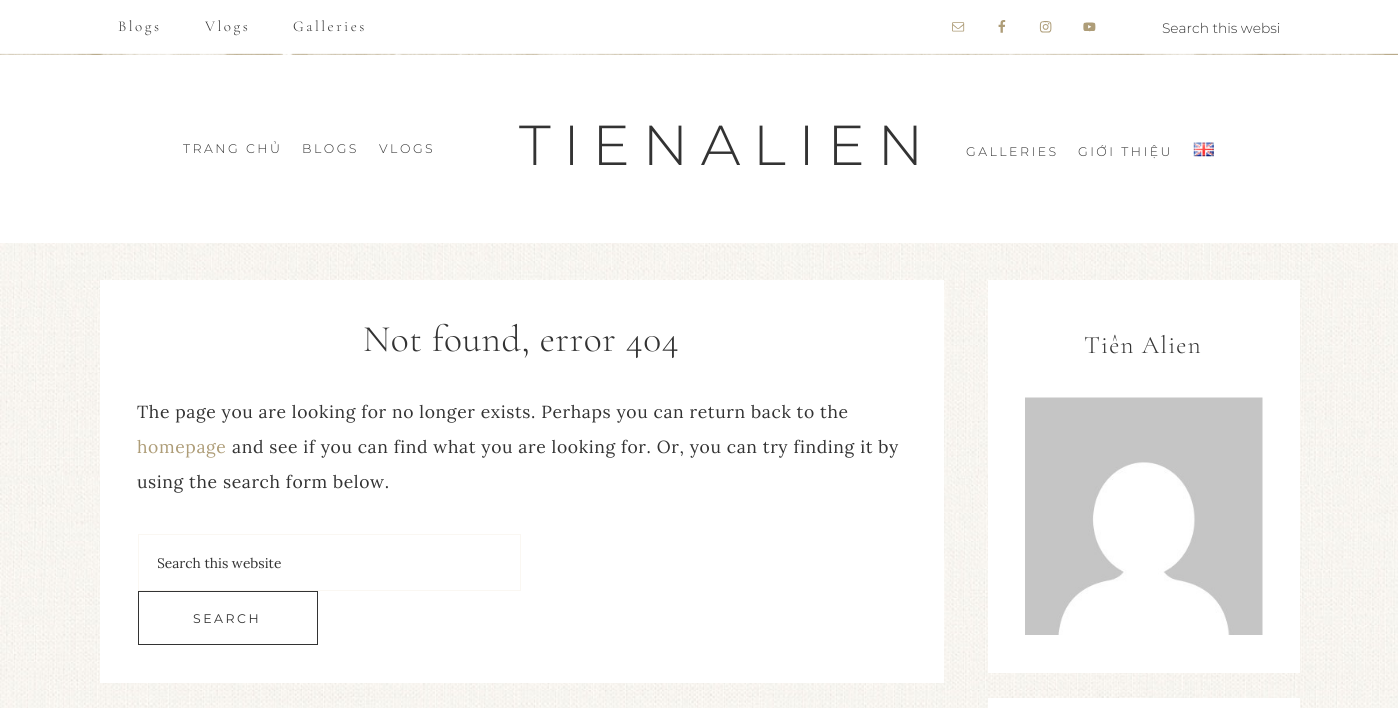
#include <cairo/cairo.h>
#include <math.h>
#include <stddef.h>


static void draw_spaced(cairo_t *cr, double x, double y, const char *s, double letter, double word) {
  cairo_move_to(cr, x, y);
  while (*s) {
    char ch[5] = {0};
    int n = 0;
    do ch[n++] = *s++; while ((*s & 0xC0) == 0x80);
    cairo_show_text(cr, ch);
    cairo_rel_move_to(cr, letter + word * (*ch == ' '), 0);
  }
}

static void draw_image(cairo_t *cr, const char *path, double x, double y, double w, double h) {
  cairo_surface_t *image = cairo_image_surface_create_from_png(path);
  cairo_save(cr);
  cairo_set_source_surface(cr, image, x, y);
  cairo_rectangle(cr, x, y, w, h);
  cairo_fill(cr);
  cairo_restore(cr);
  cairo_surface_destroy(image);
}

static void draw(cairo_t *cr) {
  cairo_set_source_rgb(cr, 1, 1, 1);
  cairo_paint(cr);
  draw_image(cr, "images/1.png", 0, 243, 1398, 465);
  draw_image(cr, "images/2.png", 0, 53, 1398, 2);
  draw_image(cr, "images/3.png", 952, 22, 13, 10);
  draw_image(cr, "images/4.png", 998, 20, 8, 13);
  draw_image(cr, "images/5.png", 1039, 21, 13, 12);
  draw_image(cr, "images/6.png", 1083, 22, 13, 10);
  draw_image(cr, "images/7.png", 1193, 142, 21, 15);
  cairo_set_source_rgb(cr, 1, 1, 1);
  cairo_rectangle(cr, 100, 280, 844, 403);
  cairo_fill(cr);
  cairo_rectangle(cr, 138.5, 534.5, 382, 56);
  cairo_set_source_rgb(cr, 250 / 255.0, 247 / 255.0, 242 / 255.0);
  cairo_set_line_width(cr, 1);
  cairo_stroke(cr);
  cairo_rectangle(cr, 138.5, 591.5, 179, 53);
  cairo_set_source_rgb(cr, 51 / 255.0, 51 / 255.0, 51 / 255.0);
  cairo_stroke(cr);
  cairo_set_source_rgb(cr, 1, 1, 1);
  cairo_rectangle(cr, 988, 280, 312, 393);
  cairo_fill(cr);
  draw_image(cr, "images/8.png", 1025, 397, 238, 238);
  cairo_rectangle(cr, 988, 698, 312, 10);
  cairo_fill(cr);
  cairo_select_font_face(cr, "Cormorant Garamond Light", CAIRO_FONT_SLANT_NORMAL, CAIRO_FONT_WEIGHT_NORMAL);
  cairo_set_font_size(cr, 15);
  cairo_set_source_rgb(cr, 51 / 255.0, 51 / 255.0, 51 / 255.0);
  draw_spaced(cr, 118, 31, "Blogs", 2.5, 0);
  draw_spaced(cr, 205, 31, "Vlogs", 2.5, 0);
  draw_spaced(cr, 293, 31, "Galleries", 2.5, 0);
  cairo_select_font_face(cr, "Montserrat Light", CAIRO_FONT_SLANT_NORMAL, CAIRO_FONT_WEIGHT_NORMAL);
  cairo_set_font_size(cr, 13.75);
  cairo_move_to(cr, 1162, 33);
  cairo_show_text(cr, "Search this websi");
  cairo_set_font_size(cr, 12.5);
  draw_spaced(cr, 183, 153, "TRANG CHỦ", 2.5, 0);
  draw_spaced(cr, 302, 153, "BLOGS", 2.5, 0);
  draw_spaced(cr, 379, 153, "VLOGS", 2.5, 0);
  cairo_set_font_size(cr, 56.25);
  draw_spaced(cr, 519, 165, "TIENALIEN", 12.5, 0);
  cairo_set_font_size(cr, 12.5);
  draw_spaced(cr, 966, 156, "GALLERIES", 2.5, 0);
  draw_spaced(cr, 1078, 156, "GIỚI THIỆU", 2.5, 0);
  cairo_select_font_face(cr, "Cormorant Garamond Light", CAIRO_FONT_SLANT_NORMAL, CAIRO_FONT_WEIGHT_NORMAL);
  cairo_set_font_size(cr, 37.5);
  draw_spaced(cr, 363, 351, "Not found, error 404", 0.62, 0);
  cairo_select_font_face(cr, "Lora", CAIRO_FONT_SLANT_NORMAL, CAIRO_FONT_WEIGHT_NORMAL);
  cairo_set_font_size(cr, 17.5);
  draw_spaced(cr, 137, 418, "The page you are looking for no longer exists. Perhaps you can return back to the", 0.62, 0);
  cairo_set_source_rgb(cr, 174 / 255.0, 157 / 255.0, 120 / 255.0);
  draw_spaced(cr, 137, 453, "homepage", 0.62, 0);
  cairo_set_source_rgb(cr, 51 / 255.0, 51 / 255.0, 51 / 255.0);
  draw_spaced(cr, 232, 453, "and see if you can find what you are looking for. Or, you can try finding it by", 0.62, 0);
  draw_spaced(cr, 137, 488, "using the search form below.", 0.62, 0);
  cairo_save(cr);
  cairo_rectangle(cr, 158, 554, 343, 17);
  cairo_clip(cr);
  cairo_set_font_size(cr, 13.75);
  cairo_move_to(cr, 157, 568);
  cairo_show_text(cr, "Search this website");
  cairo_restore(cr);
  cairo_select_font_face(cr, "Montserrat", CAIRO_FONT_SLANT_NORMAL, CAIRO_FONT_WEIGHT_NORMAL);
  cairo_set_font_size(cr, 12.5);
  draw_spaced(cr, 193, 623, "SEARCH", 2.5, 0);
  cairo_select_font_face(cr, "Cormorant Garamond Light", CAIRO_FONT_SLANT_NORMAL, CAIRO_FONT_WEIGHT_NORMAL);
  cairo_set_font_size(cr, 25);
  draw_spaced(cr, 1084, 353, "Tiên Alien", 1.25, 0);
}

int main(void) {
  cairo_surface_t *surface = cairo_image_surface_create(CAIRO_FORMAT_RGB24, 1398, 708);
  cairo_t *cr = cairo_create(surface);
  cairo_font_options_t *options = cairo_font_options_create();
  cairo_font_options_set_hint_metrics(options, CAIRO_HINT_METRICS_OFF);
  cairo_font_options_set_hint_style(options, CAIRO_HINT_STYLE_NONE);
  cairo_set_font_options(cr, options);
  cairo_set_miter_limit(cr, 4);
  draw(cr);
  cairo_surface_write_to_png(surface, "out.png");
  cairo_font_options_destroy(options);
  cairo_destroy(cr);
  cairo_surface_destroy(surface);
  return 0;
}
